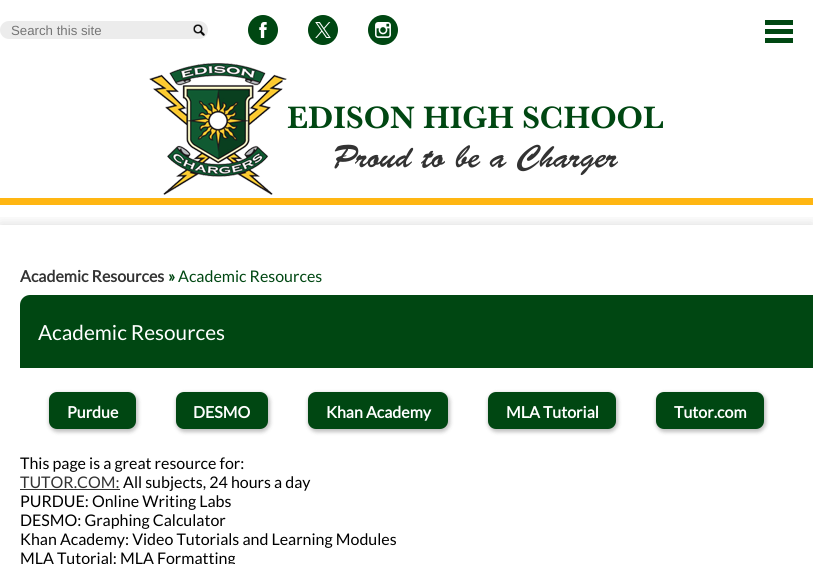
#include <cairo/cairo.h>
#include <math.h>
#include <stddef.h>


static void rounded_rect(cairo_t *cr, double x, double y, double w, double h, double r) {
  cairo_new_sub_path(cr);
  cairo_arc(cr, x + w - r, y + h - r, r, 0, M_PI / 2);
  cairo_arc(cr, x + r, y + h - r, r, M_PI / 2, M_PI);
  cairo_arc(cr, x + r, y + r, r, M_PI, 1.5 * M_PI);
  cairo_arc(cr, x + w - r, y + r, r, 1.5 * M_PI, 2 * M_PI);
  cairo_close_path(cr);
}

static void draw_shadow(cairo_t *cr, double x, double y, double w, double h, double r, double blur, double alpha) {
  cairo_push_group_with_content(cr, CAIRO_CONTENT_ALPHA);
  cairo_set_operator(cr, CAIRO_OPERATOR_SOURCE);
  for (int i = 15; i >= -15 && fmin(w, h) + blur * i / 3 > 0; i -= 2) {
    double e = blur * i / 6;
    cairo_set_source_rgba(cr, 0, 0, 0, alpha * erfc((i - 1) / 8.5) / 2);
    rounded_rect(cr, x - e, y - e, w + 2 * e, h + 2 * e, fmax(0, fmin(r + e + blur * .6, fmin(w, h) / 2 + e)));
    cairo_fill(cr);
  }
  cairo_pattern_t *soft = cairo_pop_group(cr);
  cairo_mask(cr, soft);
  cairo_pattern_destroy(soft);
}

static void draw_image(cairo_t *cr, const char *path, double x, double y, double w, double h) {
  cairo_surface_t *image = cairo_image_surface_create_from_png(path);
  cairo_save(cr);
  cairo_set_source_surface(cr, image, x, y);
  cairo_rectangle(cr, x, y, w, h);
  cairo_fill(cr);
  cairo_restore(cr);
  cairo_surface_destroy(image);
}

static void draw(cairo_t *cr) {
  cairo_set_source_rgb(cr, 1, 1, 1);
  cairo_paint(cr);
  cairo_save(cr);
  cairo_rectangle(cr, 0, 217, 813, 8);
  cairo_clip(cr);
  cairo_set_source_rgb(cr, 0, 0, 0);
  draw_shadow(cr, 0, 225, 813, 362, 0, 7.5, 0.15);
  cairo_restore(cr);
  cairo_set_source_rgb(cr, 1, 182 / 255.0, 18 / 255.0);
  cairo_rectangle(cr, 0, 198, 813, 7);
  cairo_fill(cr);
  cairo_set_source_rgb(cr, 0, 71 / 255.0, 18 / 255.0);
  cairo_rectangle(cr, 765, 20, 28, 5);
  cairo_fill(cr);
  cairo_rectangle(cr, 765, 29, 28, 5);
  cairo_fill(cr);
  cairo_rectangle(cr, 765, 38, 28, 5);
  cairo_fill(cr);
  cairo_set_source_rgb(cr, 236 / 255.0, 236 / 255.0, 236 / 255.0);
  rounded_rect(cr, 0, 21, 208, 18, 9);
  cairo_fill(cr);
  draw_image(cr, "images/1.png", 193, 24, 12, 12);
  cairo_set_source_rgb(cr, 0, 71 / 255.0, 18 / 255.0);
  cairo_arc(cr, 263, 30, 15, 0, 2 * M_PI);
  cairo_fill(cr);
  draw_image(cr, "images/2.png", 259, 22, 8, 16);
  cairo_arc(cr, 323, 30, 15, 0, 2 * M_PI);
  cairo_fill(cr);
  draw_image(cr, "images/3.png", 315, 22, 16, 16);
  cairo_arc(cr, 383, 30, 15, 0, 2 * M_PI);
  cairo_fill(cr);
  draw_image(cr, "images/4.png", 375, 22, 16, 16);
  draw_image(cr, "images/5.png", 149, 63, 138, 132);
  cairo_new_path(cr);
  cairo_move_to(cr, 30, 295);
  cairo_line_to(cr, 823, 295);
  cairo_line_to(cr, 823, 358);
  cairo_curve_to(cr, 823, 363.5, 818.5, 368, 813, 368);
  cairo_line_to(cr, 20, 368);
  cairo_line_to(cr, 20, 305);
  cairo_curve_to(cr, 20, 299.5, 24.5, 295, 30, 295);
  cairo_close_path(cr);
  cairo_fill(cr);
  cairo_set_source_rgb(cr, 0, 0, 0);
  draw_shadow(cr, 49, 393, 89, 39, 9, 2, 0.25);
  cairo_set_source_rgb(cr, 0, 71 / 255.0, 18 / 255.0);
  rounded_rect(cr, 49, 392, 87, 37, 8);
  cairo_fill(cr);
  cairo_set_source_rgb(cr, 0, 0, 0);
  draw_shadow(cr, 176, 393, 94, 39, 9, 2, 0.25);
  cairo_set_source_rgb(cr, 0, 71 / 255.0, 18 / 255.0);
  rounded_rect(cr, 176, 392, 92, 37, 8);
  cairo_fill(cr);
  cairo_set_source_rgb(cr, 0, 0, 0);
  draw_shadow(cr, 308, 393, 142, 39, 9, 2, 0.25);
  cairo_set_source_rgb(cr, 0, 71 / 255.0, 18 / 255.0);
  rounded_rect(cr, 308, 392, 140, 37, 8);
  cairo_fill(cr);
  cairo_set_source_rgb(cr, 0, 0, 0);
  draw_shadow(cr, 488, 393, 130, 39, 9, 2, 0.25);
  cairo_set_source_rgb(cr, 0, 71 / 255.0, 18 / 255.0);
  rounded_rect(cr, 488, 392, 128, 37, 8);
  cairo_fill(cr);
  cairo_set_source_rgb(cr, 0, 0, 0);
  draw_shadow(cr, 656, 393, 110, 39, 9, 2, 0.25);
  cairo_set_source_rgb(cr, 0, 71 / 255.0, 18 / 255.0);
  rounded_rect(cr, 656, 392, 108, 37, 8);
  cairo_fill(cr);
  cairo_set_source_rgb(cr, 51 / 255.0, 51 / 255.0, 51 / 255.0);
  cairo_rectangle(cr, 20, 489, 100, 1);
  cairo_fill(cr);
  cairo_select_font_face(cr, "Liberation Sans", CAIRO_FONT_SLANT_NORMAL, CAIRO_FONT_WEIGHT_NORMAL);
  cairo_set_font_size(cr, 13.25);
  cairo_set_source_rgb(cr, 117 / 255.0, 117 / 255.0, 117 / 255.0);
  cairo_move_to(cr, 11, 35);
  cairo_show_text(cr, "Search this site");
  cairo_select_font_face(cr, "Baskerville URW", CAIRO_FONT_SLANT_NORMAL, CAIRO_FONT_WEIGHT_BOLD);
  cairo_set_font_size(cr, 32);
  cairo_set_source_rgb(cr, 0, 71 / 255.0, 18 / 255.0);
  cairo_move_to(cr, 287, 128);
  cairo_show_text(cr, "EDISON HIGH SCHOOL");
  cairo_select_font_face(cr, "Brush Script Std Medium", CAIRO_FONT_SLANT_NORMAL, CAIRO_FONT_WEIGHT_NORMAL);
  cairo_set_source_rgb(cr, 51 / 255.0, 51 / 255.0, 51 / 255.0);
  cairo_move_to(cr, 333, 167);
  cairo_show_text(cr, "Proud to be a Charger");
  cairo_select_font_face(cr, "Lato", CAIRO_FONT_SLANT_NORMAL, CAIRO_FONT_WEIGHT_BOLD);
  cairo_set_font_size(cr, 16);
  cairo_move_to(cr, 20, 282);
  cairo_show_text(cr, "Academic Resources");
  cairo_set_source_rgb(cr, 0, 71 / 255.0, 18 / 255.0);
  cairo_move_to(cr, 168, 282);
  cairo_show_text(cr, "»");
  cairo_select_font_face(cr, "Lato", CAIRO_FONT_SLANT_NORMAL, CAIRO_FONT_WEIGHT_NORMAL);
  cairo_move_to(cr, 178, 282);
  cairo_show_text(cr, "Academic Resources");
  cairo_set_font_size(cr, 20.75);
  cairo_set_source_rgb(cr, 1, 1, 1);
  cairo_move_to(cr, 38, 340);
  cairo_show_text(cr, "Academic Resources");
  cairo_select_font_face(cr, "Lato", CAIRO_FONT_SLANT_NORMAL, CAIRO_FONT_WEIGHT_BOLD);
  cairo_set_font_size(cr, 16);
  cairo_move_to(cr, 67, 418);
  cairo_show_text(cr, "Purdue");
  cairo_move_to(cr, 193, 418);
  cairo_show_text(cr, "DESMO");
  cairo_move_to(cr, 326, 418);
  cairo_show_text(cr, "Khan Academy");
  cairo_move_to(cr, 506, 418);
  cairo_show_text(cr, "MLA Tutorial");
  cairo_move_to(cr, 674, 418);
  cairo_show_text(cr, "Tutor.com");
  cairo_select_font_face(cr, "Lato", CAIRO_FONT_SLANT_NORMAL, CAIRO_FONT_WEIGHT_NORMAL);
  cairo_set_source_rgb(cr, 0, 0, 0);
  cairo_move_to(cr, 20, 469);
  cairo_show_text(cr, "This page is a great resource for:");
  cairo_set_source_rgb(cr, 51 / 255.0, 51 / 255.0, 51 / 255.0);
  cairo_move_to(cr, 20, 488);
  cairo_show_text(cr, "TUTOR.COM:");
  cairo_set_source_rgb(cr, 0, 0, 0);
  cairo_move_to(cr, 123, 488);
  cairo_show_text(cr, "All subjects, 24 hours a day");
  cairo_move_to(cr, 20, 507);
  cairo_show_text(cr, "PURDUE: Online Writing Labs");
  cairo_move_to(cr, 20, 526);
  cairo_show_text(cr, "DESMO: Graphing Calculator");
  cairo_move_to(cr, 20, 545);
  cairo_show_text(cr, "Khan Academy: Video Tutorials and Learning Modules");
  cairo_move_to(cr, 20, 564);
  cairo_show_text(cr, "MLA Tutorial: MLA Formatting");
}

int main(void) {
  cairo_surface_t *surface = cairo_image_surface_create(CAIRO_FORMAT_RGB24, 813, 564);
  cairo_t *cr = cairo_create(surface);
  cairo_font_options_t *options = cairo_font_options_create();
  cairo_font_options_set_hint_metrics(options, CAIRO_HINT_METRICS_OFF);
  cairo_font_options_set_hint_style(options, CAIRO_HINT_STYLE_NONE);
  cairo_set_font_options(cr, options);
  cairo_set_miter_limit(cr, 4);
  draw(cr);
  cairo_surface_write_to_png(surface, "out.png");
  cairo_font_options_destroy(options);
  cairo_destroy(cr);
  cairo_surface_destroy(surface);
  return 0;
}
